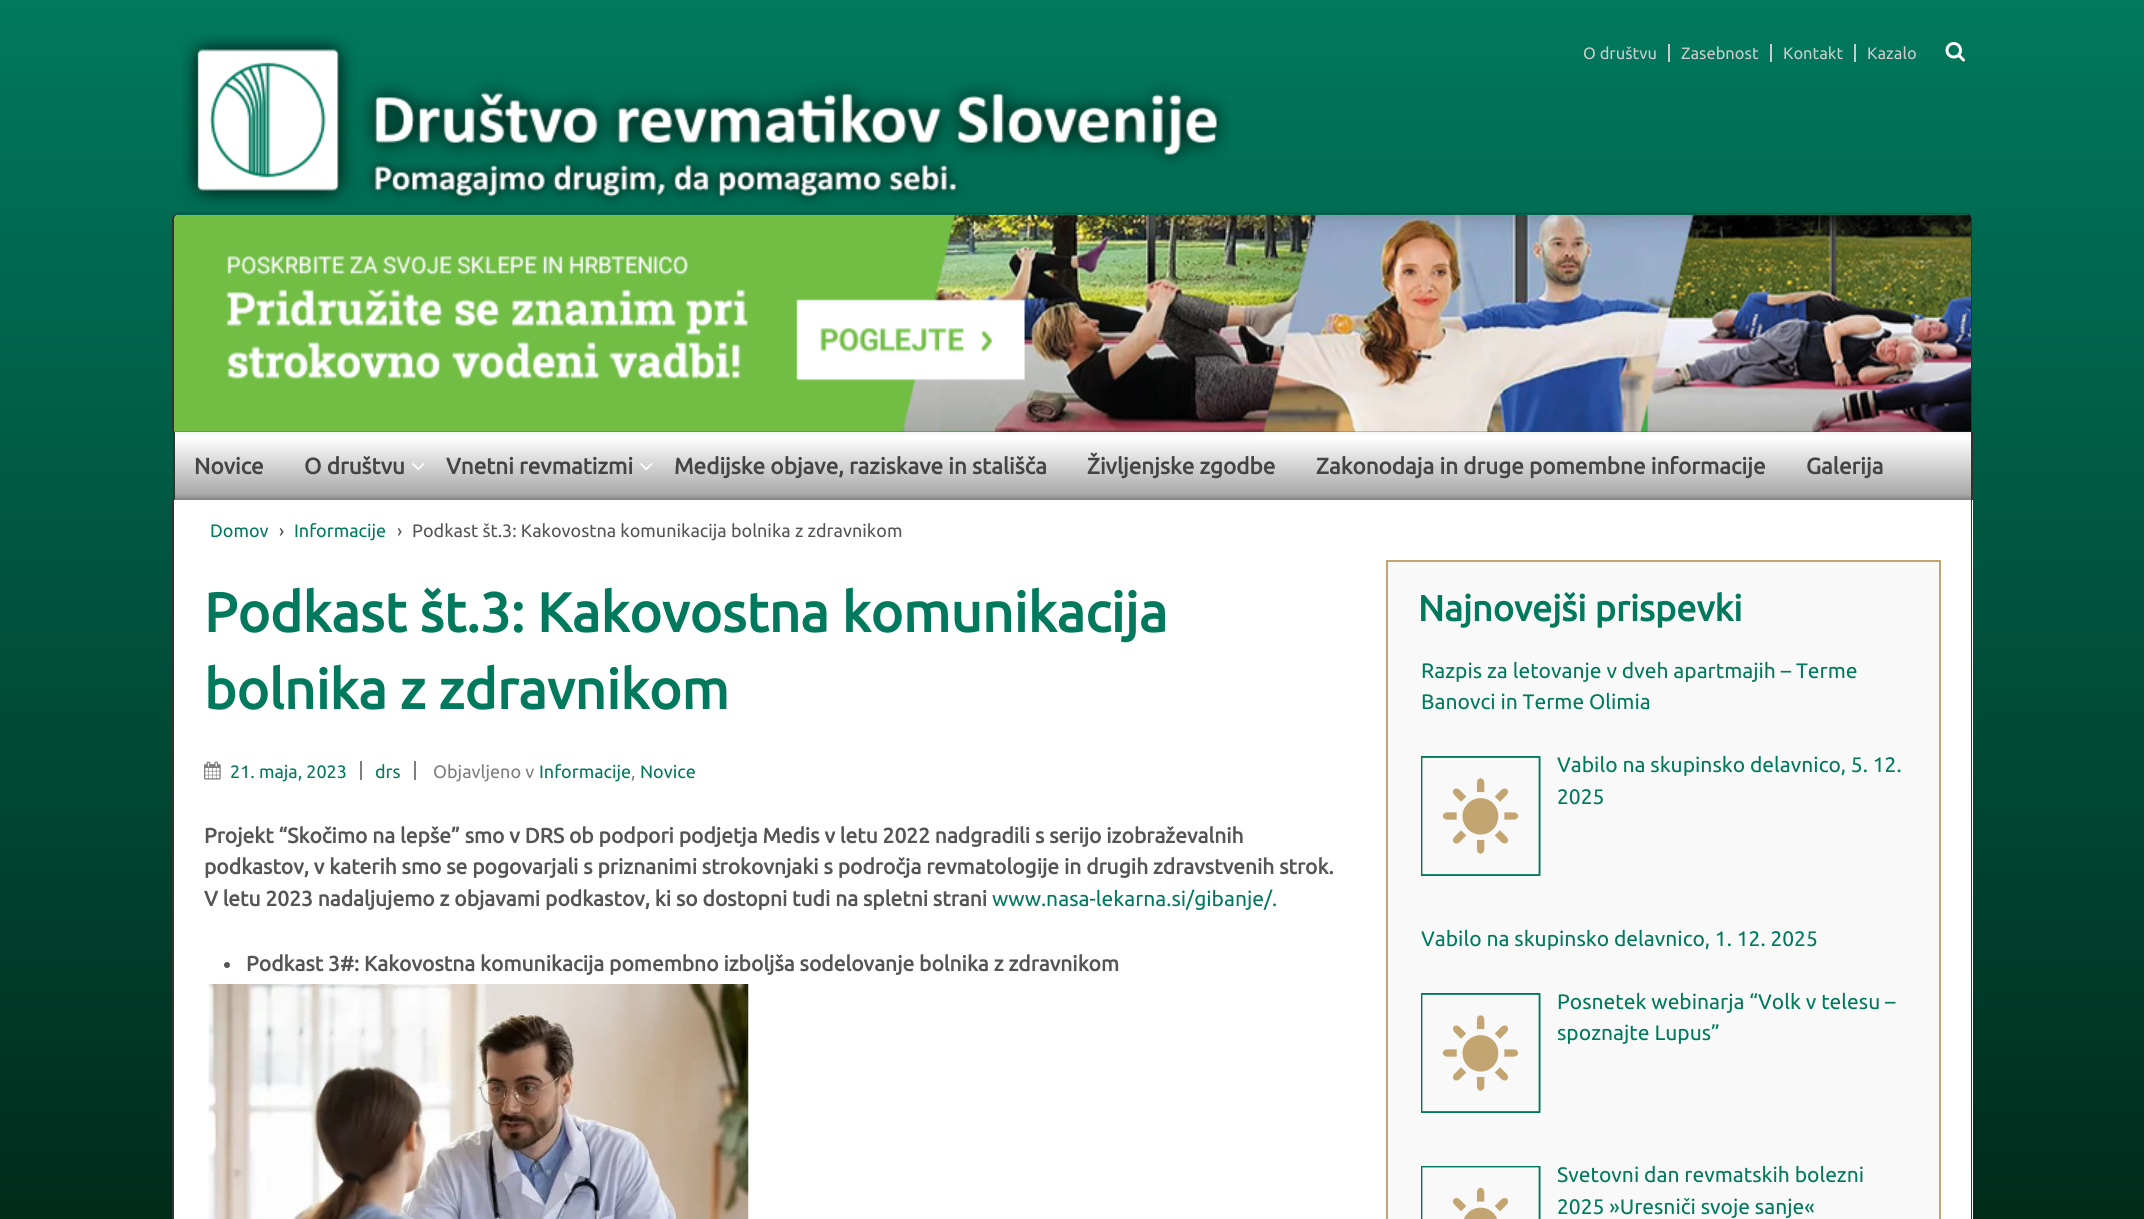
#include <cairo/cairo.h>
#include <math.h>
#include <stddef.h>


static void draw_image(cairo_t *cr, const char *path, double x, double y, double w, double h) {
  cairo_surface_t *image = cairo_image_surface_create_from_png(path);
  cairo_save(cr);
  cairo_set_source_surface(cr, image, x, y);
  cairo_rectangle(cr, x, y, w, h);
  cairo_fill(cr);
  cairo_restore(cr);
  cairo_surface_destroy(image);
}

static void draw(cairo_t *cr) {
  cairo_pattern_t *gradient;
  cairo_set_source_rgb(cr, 1, 1, 1);
  cairo_paint(cr);
  gradient = cairo_pattern_create_linear(1073, 0, 1073, 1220);
  cairo_pattern_add_color_stop_rgba(gradient, 0, 0, 121 / 255.0, 93 / 255.0, 1);
  cairo_pattern_add_color_stop_rgba(gradient, 1, 0, 43 / 255.0, 27 / 255.0, 1);
  cairo_set_source(cr, gradient);
  cairo_pattern_destroy(gradient);
  cairo_rectangle(cr, 0, 0, 2144, 1219);
  cairo_fill(cr);
  draw_image(cr, "images/1.png", 182, 34, 1048, 172);
  cairo_set_source_rgb(cr, 204 / 255.0, 204 / 255.0, 204 / 255.0);
  cairo_rectangle(cr, 1668, 44, 2, 18);
  cairo_fill(cr);
  cairo_rectangle(cr, 1770, 44, 2, 18);
  cairo_fill(cr);
  cairo_rectangle(cr, 1854, 44, 2, 18);
  cairo_fill(cr);
  draw_image(cr, "images/2.png", 1945, 42, 20, 20);
  cairo_set_source_rgb(cr, 51 / 255.0, 51 / 255.0, 51 / 255.0);
  cairo_set_fill_rule(cr, CAIRO_FILL_RULE_EVEN_ODD);
  cairo_new_path(cr);
  cairo_move_to(cr, 178, 213);
  cairo_line_to(cr, 1966, 213);
  cairo_curve_to(cr, 1970, 213, 1972, 216, 1972, 219);
  cairo_line_to(cr, 1972, 432);
  cairo_line_to(cr, 172, 432);
  cairo_line_to(cr, 172, 219);
  cairo_curve_to(cr, 172, 216, 175, 213, 178, 213);
  cairo_close_path(cr);
  cairo_move_to(cr, 178, 214);
  cairo_line_to(cr, 1966, 214);
  cairo_curve_to(cr, 1969, 214, 1971, 217, 1971, 219);
  cairo_line_to(cr, 1971, 432);
  cairo_line_to(cr, 174, 432);
  cairo_line_to(cr, 174, 219);
  cairo_curve_to(cr, 174, 217, 176, 214, 178, 214);
  cairo_close_path(cr);
  cairo_fill(cr);
  draw_image(cr, "images/3.png", 174, 215, 1797, 217);
  gradient = cairo_pattern_create_linear(1073, 432, 1073, 500);
  cairo_pattern_add_color_stop_rgba(gradient, 0, 245 / 255.0, 246 / 255.0, 246 / 255.0, 1);
  cairo_pattern_add_color_stop_rgba(gradient, 0.08, 1, 1, 1, 1);
  cairo_pattern_add_color_stop_rgba(gradient, 0.92, 168 / 255.0, 168 / 255.0, 168 / 255.0, 1);
  cairo_pattern_add_color_stop_rgba(gradient, 1, 130 / 255.0, 130 / 255.0, 130 / 255.0, 1);
  cairo_set_source(cr, gradient);
  cairo_pattern_destroy(gradient);
  cairo_rectangle(cr, 175, 432, 1796, 68);
  cairo_fill(cr);
  cairo_set_source_rgb(cr, 51 / 255.0, 51 / 255.0, 51 / 255.0);
  cairo_rectangle(cr, 1971, 432, 2, 68);
  cairo_fill(cr);
  cairo_rectangle(cr, 173, 432, 2, 68);
  cairo_fill(cr);
  draw_image(cr, "images/4.png", 412, 463, 13, 8);
  draw_image(cr, "images/4.png", 640, 463, 13, 8);
  cairo_set_source_rgb(cr, 1, 1, 1);
  cairo_rectangle(cr, 174, 500, 1799, 719);
  cairo_fill(cr);
  cairo_set_source_rgb(cr, 51 / 255.0, 51 / 255.0, 51 / 255.0);
  cairo_new_path(cr);
  cairo_move_to(cr, 172, 500);
  cairo_line_to(cr, 1972, 500);
  cairo_line_to(cr, 1972, 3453);
  cairo_curve_to(cr, 1972, 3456, 1970, 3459, 1966, 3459);
  cairo_line_to(cr, 178, 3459);
  cairo_curve_to(cr, 175, 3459, 172, 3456, 172, 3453);
  cairo_close_path(cr);
  cairo_move_to(cr, 174, 500);
  cairo_line_to(cr, 1971, 500);
  cairo_line_to(cr, 1971, 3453);
  cairo_curve_to(cr, 1971, 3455, 1969, 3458, 1966, 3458);
  cairo_line_to(cr, 178, 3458);
  cairo_curve_to(cr, 176, 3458, 174, 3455, 174, 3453);
  cairo_close_path(cr);
  cairo_fill(cr);
  draw_image(cr, "images/5.png", 204, 761, 17, 19);
  cairo_set_source_rgb(cr, 126 / 255.0, 126 / 255.0, 126 / 255.0);
  cairo_rectangle(cr, 360, 761, 2, 19);
  cairo_fill(cr);
  cairo_rectangle(cr, 414, 761, 2, 19);
  cairo_fill(cr);
  cairo_set_source_rgb(cr, 85 / 255.0, 85 / 255.0, 85 / 255.0);
  cairo_arc(cr, 227, 965, 3, 0, 2 * M_PI);
  cairo_fill(cr);
  draw_image(cr, "images/6.png", 208, 984, 541, 235);
  cairo_set_source_rgb(cr, 249 / 255.0, 249 / 255.0, 249 / 255.0);
  cairo_rectangle(cr, 1387, 561, 553, 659);
  cairo_fill_preserve(cr);
  cairo_set_source_rgb(cr, 195 / 255.0, 165 / 255.0, 114 / 255.0);
  cairo_stroke(cr);
  draw_image(cr, "images/7.png", 1421, 756, 120, 120);
  draw_image(cr, "images/7.png", 1421, 993, 120, 120);
  draw_image(cr, "images/8.png", 1421, 1166, 120, 53);
  cairo_select_font_face(cr, "Ubuntu", CAIRO_FONT_SLANT_NORMAL, CAIRO_FONT_WEIGHT_NORMAL);
  cairo_set_font_size(cr, 16.5);
  cairo_set_source_rgb(cr, 204 / 255.0, 204 / 255.0, 204 / 255.0);
  cairo_move_to(cr, 1583, 59);
  cairo_show_text(cr, "O društvu");
  cairo_move_to(cr, 1681, 59);
  cairo_show_text(cr, "Zasebnost");
  cairo_move_to(cr, 1783, 59);
  cairo_show_text(cr, "Kontakt");
  cairo_move_to(cr, 1867, 59);
  cairo_show_text(cr, "Kazalo");
  cairo_select_font_face(cr, "Ubuntu", CAIRO_FONT_SLANT_NORMAL, CAIRO_FONT_WEIGHT_BOLD);
  cairo_set_font_size(cr, 22.5);
  cairo_set_source_rgb(cr, 68 / 255.0, 68 / 255.0, 68 / 255.0);
  cairo_move_to(cr, 194, 474);
  cairo_show_text(cr, "Novice");
  cairo_move_to(cr, 304, 474);
  cairo_show_text(cr, "O društvu");
  cairo_move_to(cr, 446, 474);
  cairo_show_text(cr, "Vnetni revmatizmi");
  cairo_move_to(cr, 674, 474);
  cairo_show_text(cr, "Medijske objave, raziskave in stališča");
  cairo_move_to(cr, 1087, 474);
  cairo_show_text(cr, "Življenjske zgodbe");
  cairo_move_to(cr, 1316, 474);
  cairo_show_text(cr, "Zakonodaja in druge pomembne informacije");
  cairo_move_to(cr, 1806, 474);
  cairo_show_text(cr, "Galerija");
  cairo_select_font_face(cr, "Ubuntu", CAIRO_FONT_SLANT_NORMAL, CAIRO_FONT_WEIGHT_NORMAL);
  cairo_set_font_size(cr, 18);
  cairo_set_source_rgb(cr, 0, 121 / 255.0, 93 / 255.0);
  cairo_move_to(cr, 210, 537);
  cairo_show_text(cr, "Domov");
  cairo_set_source_rgb(cr, 85 / 255.0, 85 / 255.0, 85 / 255.0);
  cairo_move_to(cr, 279, 537);
  cairo_show_text(cr, "›");
  cairo_set_source_rgb(cr, 0, 121 / 255.0, 93 / 255.0);
  cairo_move_to(cr, 294, 537);
  cairo_show_text(cr, "Informacije");
  cairo_set_source_rgb(cr, 85 / 255.0, 85 / 255.0, 85 / 255.0);
  cairo_move_to(cr, 397, 537);
  cairo_show_text(cr, "›");
  cairo_move_to(cr, 412, 537);
  cairo_show_text(cr, "Podkast št.3: Kakovostna komunikacija bolnika z zdravnikom");
  cairo_select_font_face(cr, "Ubuntu", CAIRO_FONT_SLANT_NORMAL, CAIRO_FONT_WEIGHT_BOLD);
  cairo_set_font_size(cr, 55.1);
  cairo_set_source_rgb(cr, 0, 121 / 255.0, 93 / 255.0);
  cairo_move_to(cr, 204, 632);
  cairo_show_text(cr, "Podkast št.3: Kakovostna komunikacija");
  cairo_move_to(cr, 204, 709);
  cairo_show_text(cr, "bolnika z zdravnikom");
  cairo_select_font_face(cr, "Ubuntu", CAIRO_FONT_SLANT_NORMAL, CAIRO_FONT_WEIGHT_NORMAL);
  cairo_set_font_size(cr, 18);
  cairo_move_to(cr, 230, 778);
  cairo_show_text(cr, "21. maja, 2023");
  cairo_move_to(cr, 375, 778);
  cairo_show_text(cr, "drs");
  cairo_set_source_rgb(cr, 126 / 255.0, 126 / 255.0, 126 / 255.0);
  cairo_move_to(cr, 433, 778);
  cairo_show_text(cr, "Objavljeno v");
  cairo_set_source_rgb(cr, 0, 121 / 255.0, 93 / 255.0);
  cairo_move_to(cr, 539, 778);
  cairo_show_text(cr, "Informacije");
  cairo_set_source_rgb(cr, 126 / 255.0, 126 / 255.0, 126 / 255.0);
  cairo_move_to(cr, 631, 778);
  cairo_show_text(cr, ",");
  cairo_set_source_rgb(cr, 0, 121 / 255.0, 93 / 255.0);
  cairo_move_to(cr, 640, 778);
  cairo_show_text(cr, "Novice");
  cairo_select_font_face(cr, "Ubuntu", CAIRO_FONT_SLANT_NORMAL, CAIRO_FONT_WEIGHT_BOLD);
  cairo_set_font_size(cr, 21);
  cairo_set_source_rgb(cr, 85 / 255.0, 85 / 255.0, 85 / 255.0);
  cairo_move_to(cr, 204, 843);
  cairo_show_text(cr, "Projekt “Skočimo na lepše” smo v DRS ob podpori podjetja Medis v letu 2022 nadgradili s serijo izobraževalnih");
  cairo_move_to(cr, 204, 874);
  cairo_show_text(cr, "podkastov, v katerih smo se pogovarjali s priznanimi strokovnjaki s področja revmatologije in drugih zdravstvenih strok.");
  cairo_move_to(cr, 204, 906);
  cairo_show_text(cr, "V letu 2023 nadaljujemo z objavami podkastov, ki so dostopni tudi na spletni strani");
  cairo_select_font_face(cr, "Ubuntu", CAIRO_FONT_SLANT_NORMAL, CAIRO_FONT_WEIGHT_NORMAL);
  cairo_set_source_rgb(cr, 0, 121 / 255.0, 93 / 255.0);
  cairo_move_to(cr, 992, 906);
  cairo_show_text(cr, "www.nasa-lekarna.si/gibanje/.");
  cairo_select_font_face(cr, "Ubuntu", CAIRO_FONT_SLANT_NORMAL, CAIRO_FONT_WEIGHT_BOLD);
  cairo_set_source_rgb(cr, 85 / 255.0, 85 / 255.0, 85 / 255.0);
  cairo_move_to(cr, 246, 971);
  cairo_show_text(cr, "Podkast 3#: Kakovostna komunikacija pomembno izboljša sodelovanje bolnika z zdravnikom");
  cairo_set_font_size(cr, 36);
  cairo_set_source_rgb(cr, 0, 121 / 255.0, 93 / 255.0);
  cairo_move_to(cr, 1418, 621);
  cairo_show_text(cr, "Najnovejši prispevki");
  cairo_select_font_face(cr, "Ubuntu", CAIRO_FONT_SLANT_NORMAL, CAIRO_FONT_WEIGHT_NORMAL);
  cairo_set_font_size(cr, 21);
  cairo_move_to(cr, 1421, 678);
  cairo_show_text(cr, "Razpis za letovanje v dveh apartmajih – Terme");
  cairo_move_to(cr, 1421, 709);
  cairo_show_text(cr, "Banovci in Terme Olimia");
  cairo_move_to(cr, 1557, 772);
  cairo_show_text(cr, "Vabilo na skupinsko delavnico, 5. 12.");
  cairo_move_to(cr, 1557, 804);
  cairo_show_text(cr, "2025");
  cairo_move_to(cr, 1421, 946);
  cairo_show_text(cr, "Vabilo na skupinsko delavnico, 1. 12. 2025");
  cairo_move_to(cr, 1557, 1009);
  cairo_show_text(cr, "Posnetek webinarja “Volk v telesu –");
  cairo_move_to(cr, 1557, 1040);
  cairo_show_text(cr, "spoznajte Lupus”");
  cairo_move_to(cr, 1557, 1182);
  cairo_show_text(cr, "Svetovni dan revmatskih bolezni");
  cairo_move_to(cr, 1557, 1214);
  cairo_show_text(cr, "2025 »Uresniči svoje sanje«");
}

int main(void) {
  cairo_surface_t *surface = cairo_image_surface_create(CAIRO_FORMAT_RGB24, 2144, 1219);
  cairo_t *cr = cairo_create(surface);
  cairo_font_options_t *options = cairo_font_options_create();
  cairo_font_options_set_hint_metrics(options, CAIRO_HINT_METRICS_OFF);
  cairo_font_options_set_hint_style(options, CAIRO_HINT_STYLE_NONE);
  cairo_set_font_options(cr, options);
  cairo_set_miter_limit(cr, 4);
  draw(cr);
  cairo_surface_write_to_png(surface, "out.png");
  cairo_font_options_destroy(options);
  cairo_destroy(cr);
  cairo_surface_destroy(surface);
  return 0;
}
